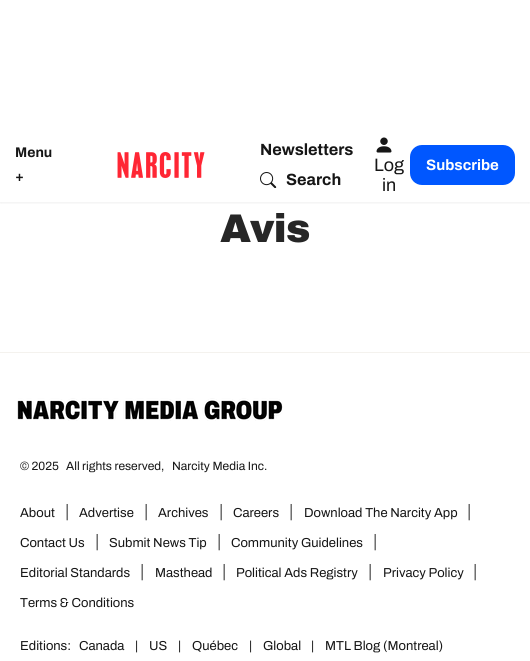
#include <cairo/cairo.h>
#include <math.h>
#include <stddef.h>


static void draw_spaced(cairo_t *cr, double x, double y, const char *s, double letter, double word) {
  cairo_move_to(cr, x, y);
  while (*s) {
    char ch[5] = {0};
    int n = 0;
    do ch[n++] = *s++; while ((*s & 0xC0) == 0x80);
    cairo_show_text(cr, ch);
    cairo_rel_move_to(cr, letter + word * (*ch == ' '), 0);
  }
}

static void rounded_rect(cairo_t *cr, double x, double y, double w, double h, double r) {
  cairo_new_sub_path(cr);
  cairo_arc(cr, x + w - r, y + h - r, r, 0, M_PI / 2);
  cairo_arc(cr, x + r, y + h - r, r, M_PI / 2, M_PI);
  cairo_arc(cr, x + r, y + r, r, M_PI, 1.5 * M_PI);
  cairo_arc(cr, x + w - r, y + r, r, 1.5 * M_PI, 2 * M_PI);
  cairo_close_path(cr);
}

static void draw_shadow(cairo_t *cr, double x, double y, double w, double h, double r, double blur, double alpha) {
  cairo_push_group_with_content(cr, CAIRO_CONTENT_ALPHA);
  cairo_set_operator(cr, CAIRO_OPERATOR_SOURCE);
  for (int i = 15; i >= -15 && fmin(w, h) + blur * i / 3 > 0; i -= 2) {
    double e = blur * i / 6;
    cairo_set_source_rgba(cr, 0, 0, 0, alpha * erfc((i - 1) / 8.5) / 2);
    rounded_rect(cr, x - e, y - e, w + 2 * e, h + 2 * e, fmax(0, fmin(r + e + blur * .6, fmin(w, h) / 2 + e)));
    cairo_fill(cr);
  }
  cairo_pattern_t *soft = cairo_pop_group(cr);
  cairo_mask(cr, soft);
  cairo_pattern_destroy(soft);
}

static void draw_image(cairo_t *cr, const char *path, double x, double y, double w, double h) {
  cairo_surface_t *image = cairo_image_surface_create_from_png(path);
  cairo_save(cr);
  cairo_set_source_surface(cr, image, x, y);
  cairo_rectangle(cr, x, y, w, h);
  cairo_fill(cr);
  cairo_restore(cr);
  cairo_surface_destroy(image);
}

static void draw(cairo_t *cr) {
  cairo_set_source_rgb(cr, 1, 1, 1);
  cairo_paint(cr);
  cairo_save(cr);
  cairo_rectangle(cr, 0, 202, 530, 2);
  cairo_clip(cr);
  cairo_set_source_rgb(cr, 0, 0, 0);
  draw_shadow(cr, 0, 127, 530, 75, 0, 2.5, 0.1);
  cairo_restore(cr);
  cairo_set_source_rgb(cr, 1, 1, 1);
  cairo_rectangle(cr, 0, 124, 530, 3);
  cairo_fill(cr);
  draw_image(cr, "images/1.png", 117, 152, 88, 26);
  draw_image(cr, "images/2.png", 260, 172, 17, 16);
  draw_image(cr, "images/3.png", 376, 137, 16, 16);
  cairo_set_source_rgb(cr, 0, 87 / 255.0, 1);
  rounded_rect(cr, 410, 145, 105, 40, 12);
  cairo_fill(cr);
  cairo_set_source_rgb(cr, 244 / 255.0, 242 / 255.0, 238 / 255.0);
  cairo_rectangle(cr, 0, 352, 530, 1);
  cairo_fill(cr);
  draw_image(cr, "images/4.png", 17, 398, 266, 23);
  cairo_select_font_face(cr, "Archivo", CAIRO_FONT_SLANT_NORMAL, CAIRO_FONT_WEIGHT_BOLD);
  cairo_set_font_size(cr, 14);
  cairo_set_source_rgb(cr, 22 / 255.0, 22 / 255.0, 22 / 255.0);
  cairo_move_to(cr, 15, 157);
  cairo_show_text(cr, "Menu");
  cairo_move_to(cr, 15, 181);
  cairo_show_text(cr, "+");
  cairo_set_font_size(cr, 16.25);
  cairo_move_to(cr, 260, 155);
  cairo_show_text(cr, "Newsletters");
  cairo_move_to(cr, 286, 185);
  cairo_show_text(cr, "Search");
  cairo_select_font_face(cr, "Archivo", CAIRO_FONT_SLANT_NORMAL, CAIRO_FONT_WEIGHT_NORMAL);
  cairo_set_font_size(cr, 18);
  cairo_move_to(cr, 374, 171);
  cairo_show_text(cr, "Log");
  cairo_move_to(cr, 382, 191);
  cairo_show_text(cr, "in");
  cairo_select_font_face(cr, "Archivo", CAIRO_FONT_SLANT_NORMAL, CAIRO_FONT_WEIGHT_BOLD);
  cairo_set_font_size(cr, 15);
  cairo_set_source_rgb(cr, 1, 1, 1);
  cairo_move_to(cr, 426, 170);
  cairo_show_text(cr, "Subscribe");
  cairo_select_font_face(cr, "Archivo Black Black", CAIRO_FONT_SLANT_NORMAL, CAIRO_FONT_WEIGHT_NORMAL);
  cairo_set_font_size(cr, 40);
  cairo_set_source_rgb(cr, 38 / 255.0, 38 / 255.0, 38 / 255.0);
  draw_spaced(cr, 220, 242, "Avis", -1, 0);
  cairo_select_font_face(cr, "Archivo", CAIRO_FONT_SLANT_NORMAL, CAIRO_FONT_WEIGHT_NORMAL);
  cairo_set_font_size(cr, 12);
  cairo_set_source_rgb(cr, 22 / 255.0, 22 / 255.0, 22 / 255.0);
  cairo_move_to(cr, 20, 470);
  cairo_show_text(cr, "© 2025");
  cairo_move_to(cr, 66, 470);
  cairo_show_text(cr, "All rights reserved,");
  cairo_move_to(cr, 172, 470);
  cairo_show_text(cr, "Narcity Media Inc.");
  cairo_set_font_size(cr, 13);
  cairo_move_to(cr, 20, 517);
  cairo_show_text(cr, "About");
  cairo_set_font_size(cr, 18);
  cairo_set_source_rgb(cr, 89 / 255.0, 89 / 255.0, 89 / 255.0);
  cairo_move_to(cr, 65, 517);
  cairo_show_text(cr, "|");
  cairo_set_font_size(cr, 13);
  cairo_set_source_rgb(cr, 22 / 255.0, 22 / 255.0, 22 / 255.0);
  cairo_move_to(cr, 79, 517);
  cairo_show_text(cr, "Advertise");
  cairo_set_font_size(cr, 18);
  cairo_set_source_rgb(cr, 89 / 255.0, 89 / 255.0, 89 / 255.0);
  cairo_move_to(cr, 144, 517);
  cairo_show_text(cr, "|");
  cairo_set_font_size(cr, 13);
  cairo_set_source_rgb(cr, 22 / 255.0, 22 / 255.0, 22 / 255.0);
  cairo_move_to(cr, 158, 517);
  cairo_show_text(cr, "Archives");
  cairo_set_font_size(cr, 18);
  cairo_set_source_rgb(cr, 89 / 255.0, 89 / 255.0, 89 / 255.0);
  cairo_move_to(cr, 219, 517);
  cairo_show_text(cr, "|");
  cairo_set_font_size(cr, 13);
  cairo_set_source_rgb(cr, 22 / 255.0, 22 / 255.0, 22 / 255.0);
  cairo_move_to(cr, 233, 517);
  cairo_show_text(cr, "Careers");
  cairo_set_font_size(cr, 18);
  cairo_set_source_rgb(cr, 89 / 255.0, 89 / 255.0, 89 / 255.0);
  cairo_move_to(cr, 289, 517);
  cairo_show_text(cr, "|");
  cairo_set_font_size(cr, 13);
  cairo_set_source_rgb(cr, 22 / 255.0, 22 / 255.0, 22 / 255.0);
  cairo_move_to(cr, 304, 517);
  cairo_show_text(cr, "Download The Narcity App");
  cairo_set_font_size(cr, 18);
  cairo_set_source_rgb(cr, 89 / 255.0, 89 / 255.0, 89 / 255.0);
  cairo_move_to(cr, 467, 517);
  cairo_show_text(cr, "|");
  cairo_set_font_size(cr, 13);
  cairo_set_source_rgb(cr, 22 / 255.0, 22 / 255.0, 22 / 255.0);
  cairo_move_to(cr, 20, 547);
  cairo_show_text(cr, "Contact Us");
  cairo_set_font_size(cr, 18);
  cairo_set_source_rgb(cr, 89 / 255.0, 89 / 255.0, 89 / 255.0);
  cairo_move_to(cr, 95, 547);
  cairo_show_text(cr, "|");
  cairo_set_font_size(cr, 13);
  cairo_set_source_rgb(cr, 22 / 255.0, 22 / 255.0, 22 / 255.0);
  cairo_move_to(cr, 109, 547);
  cairo_show_text(cr, "Submit News Tip");
  cairo_set_font_size(cr, 18);
  cairo_set_source_rgb(cr, 89 / 255.0, 89 / 255.0, 89 / 255.0);
  cairo_move_to(cr, 217, 547);
  cairo_show_text(cr, "|");
  cairo_set_font_size(cr, 13);
  cairo_set_source_rgb(cr, 22 / 255.0, 22 / 255.0, 22 / 255.0);
  cairo_move_to(cr, 231, 547);
  cairo_show_text(cr, "Community Guidelines");
  cairo_set_font_size(cr, 18);
  cairo_set_source_rgb(cr, 89 / 255.0, 89 / 255.0, 89 / 255.0);
  cairo_move_to(cr, 373, 547);
  cairo_show_text(cr, "|");
  cairo_set_font_size(cr, 13);
  cairo_set_source_rgb(cr, 22 / 255.0, 22 / 255.0, 22 / 255.0);
  cairo_move_to(cr, 20, 577);
  cairo_show_text(cr, "Editorial Standards");
  cairo_set_font_size(cr, 18);
  cairo_set_source_rgb(cr, 89 / 255.0, 89 / 255.0, 89 / 255.0);
  cairo_move_to(cr, 140, 577);
  cairo_show_text(cr, "|");
  cairo_set_font_size(cr, 13);
  cairo_set_source_rgb(cr, 22 / 255.0, 22 / 255.0, 22 / 255.0);
  cairo_move_to(cr, 155, 577);
  cairo_show_text(cr, "Masthead");
  cairo_set_font_size(cr, 18);
  cairo_set_source_rgb(cr, 89 / 255.0, 89 / 255.0, 89 / 255.0);
  cairo_move_to(cr, 222, 577);
  cairo_show_text(cr, "|");
  cairo_set_font_size(cr, 13);
  cairo_set_source_rgb(cr, 22 / 255.0, 22 / 255.0, 22 / 255.0);
  cairo_move_to(cr, 236, 577);
  cairo_show_text(cr, "Political Ads Registry");
  cairo_set_font_size(cr, 18);
  cairo_set_source_rgb(cr, 89 / 255.0, 89 / 255.0, 89 / 255.0);
  cairo_move_to(cr, 368, 577);
  cairo_show_text(cr, "|");
  cairo_set_font_size(cr, 13);
  cairo_set_source_rgb(cr, 22 / 255.0, 22 / 255.0, 22 / 255.0);
  cairo_move_to(cr, 383, 577);
  cairo_show_text(cr, "Privacy Policy");
  cairo_set_font_size(cr, 18);
  cairo_set_source_rgb(cr, 89 / 255.0, 89 / 255.0, 89 / 255.0);
  cairo_move_to(cr, 473, 577);
  cairo_show_text(cr, "|");
  cairo_set_font_size(cr, 13);
  cairo_set_source_rgb(cr, 22 / 255.0, 22 / 255.0, 22 / 255.0);
  cairo_move_to(cr, 20, 607);
  cairo_show_text(cr, "Terms & Conditions");
  cairo_move_to(cr, 20, 650);
  cairo_show_text(cr, "Editions:");
  cairo_move_to(cr, 79, 650);
  cairo_show_text(cr, "Canada");
  cairo_move_to(cr, 135, 650);
  cairo_show_text(cr, "|");
  cairo_move_to(cr, 149, 650);
  cairo_show_text(cr, "US");
  cairo_move_to(cr, 178, 650);
  cairo_show_text(cr, "|");
  cairo_move_to(cr, 192, 650);
  cairo_show_text(cr, "Québec");
  cairo_move_to(cr, 249, 650);
  cairo_show_text(cr, "|");
  cairo_move_to(cr, 263, 650);
  cairo_show_text(cr, "Global");
  cairo_move_to(cr, 311, 650);
  cairo_show_text(cr, "|");
  cairo_move_to(cr, 325, 650);
  cairo_show_text(cr, "MTL Blog (Montreal)");
}

int main(void) {
  cairo_surface_t *surface = cairo_image_surface_create(CAIRO_FORMAT_RGB24, 530, 661);
  cairo_t *cr = cairo_create(surface);
  cairo_font_options_t *options = cairo_font_options_create();
  cairo_font_options_set_hint_metrics(options, CAIRO_HINT_METRICS_OFF);
  cairo_font_options_set_hint_style(options, CAIRO_HINT_STYLE_NONE);
  cairo_set_font_options(cr, options);
  cairo_set_miter_limit(cr, 4);
  draw(cr);
  cairo_surface_write_to_png(surface, "out.png");
  cairo_font_options_destroy(options);
  cairo_destroy(cr);
  cairo_surface_destroy(surface);
  return 0;
}
